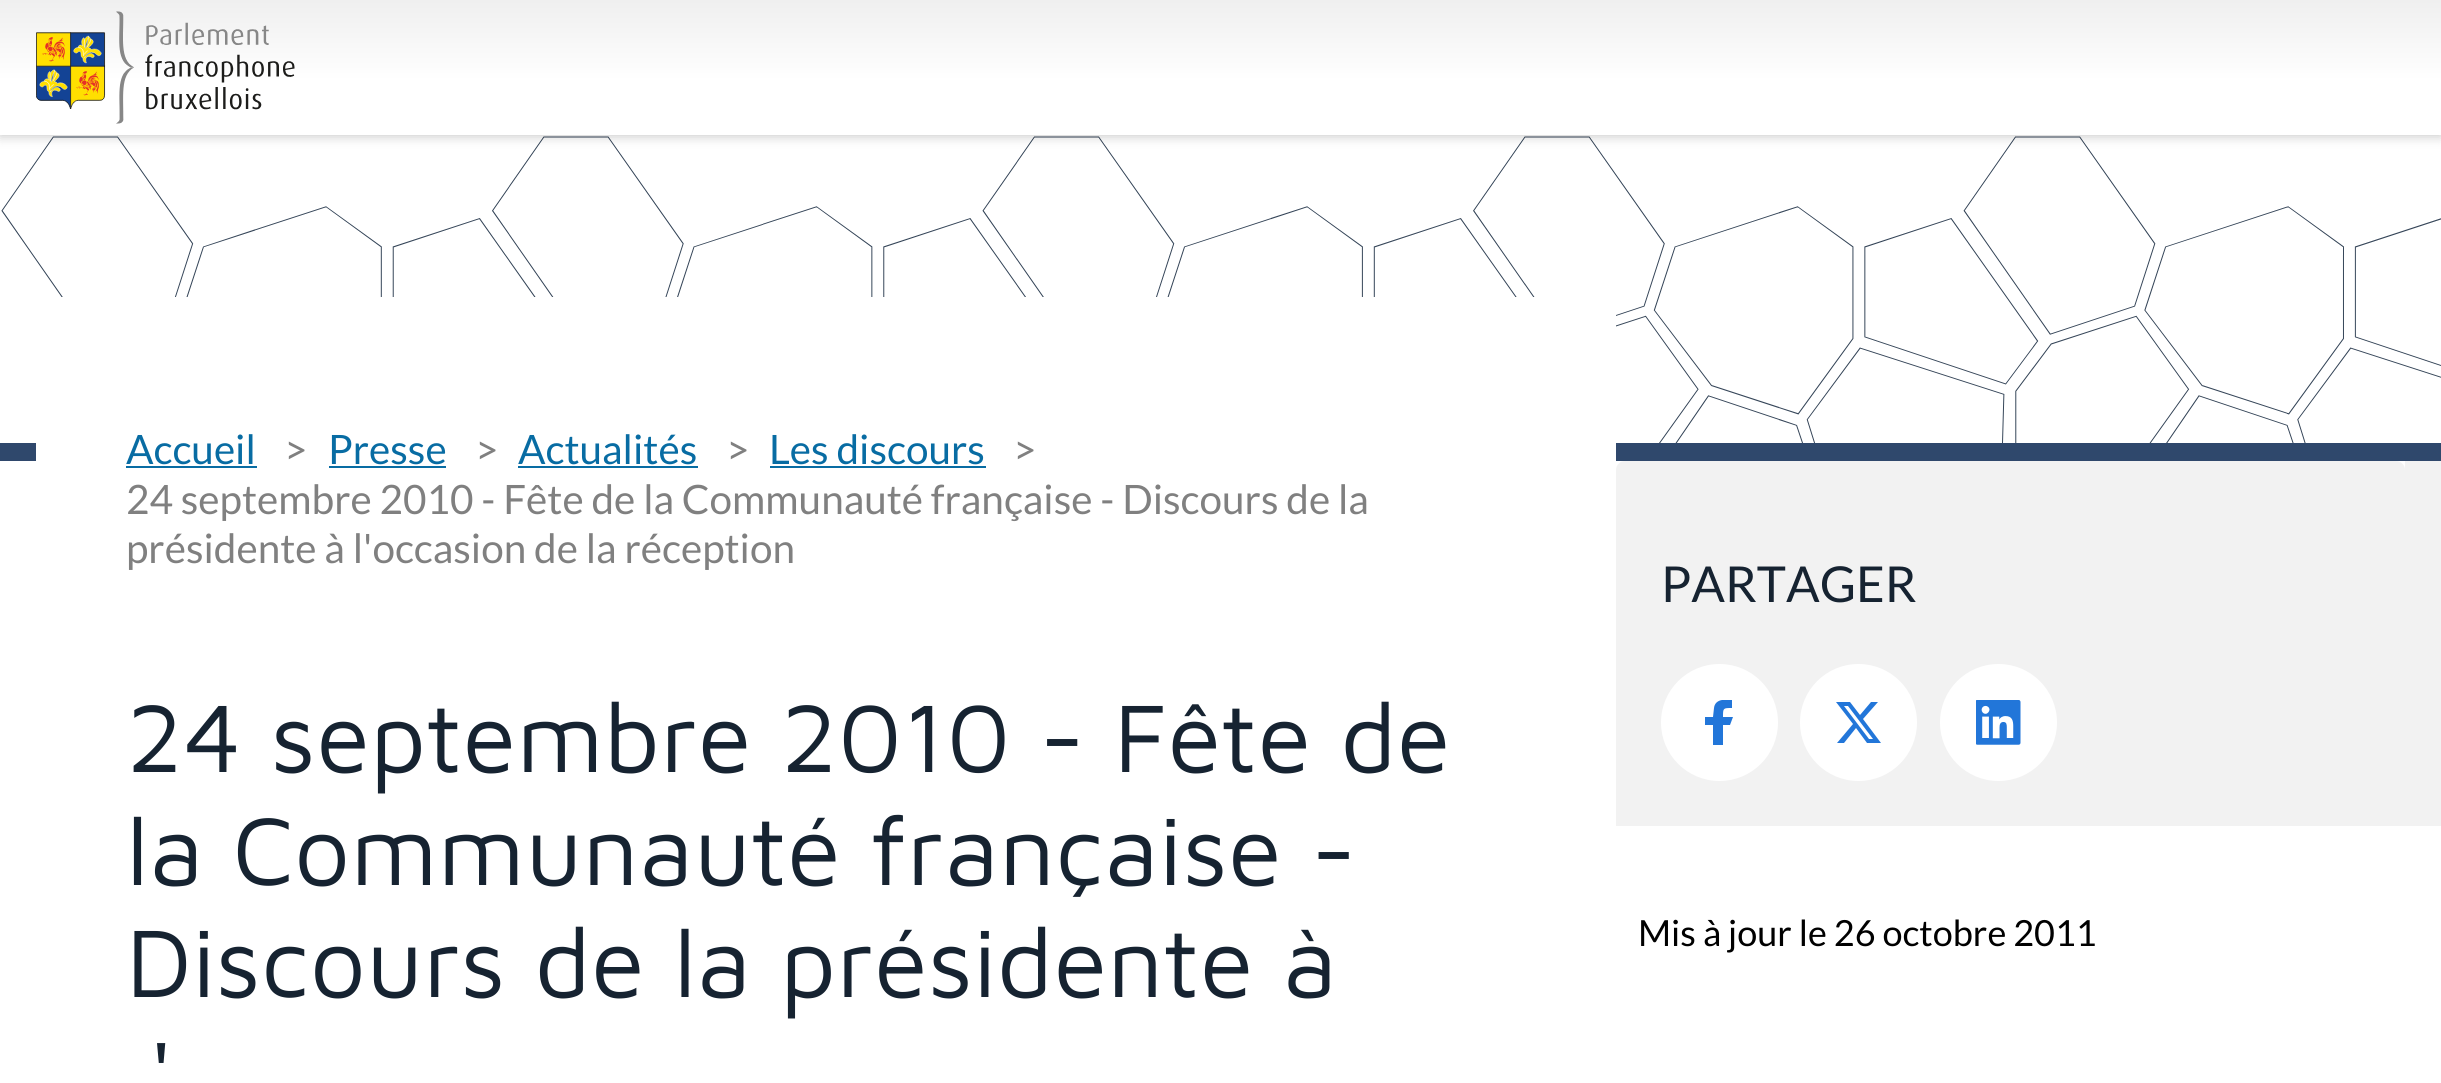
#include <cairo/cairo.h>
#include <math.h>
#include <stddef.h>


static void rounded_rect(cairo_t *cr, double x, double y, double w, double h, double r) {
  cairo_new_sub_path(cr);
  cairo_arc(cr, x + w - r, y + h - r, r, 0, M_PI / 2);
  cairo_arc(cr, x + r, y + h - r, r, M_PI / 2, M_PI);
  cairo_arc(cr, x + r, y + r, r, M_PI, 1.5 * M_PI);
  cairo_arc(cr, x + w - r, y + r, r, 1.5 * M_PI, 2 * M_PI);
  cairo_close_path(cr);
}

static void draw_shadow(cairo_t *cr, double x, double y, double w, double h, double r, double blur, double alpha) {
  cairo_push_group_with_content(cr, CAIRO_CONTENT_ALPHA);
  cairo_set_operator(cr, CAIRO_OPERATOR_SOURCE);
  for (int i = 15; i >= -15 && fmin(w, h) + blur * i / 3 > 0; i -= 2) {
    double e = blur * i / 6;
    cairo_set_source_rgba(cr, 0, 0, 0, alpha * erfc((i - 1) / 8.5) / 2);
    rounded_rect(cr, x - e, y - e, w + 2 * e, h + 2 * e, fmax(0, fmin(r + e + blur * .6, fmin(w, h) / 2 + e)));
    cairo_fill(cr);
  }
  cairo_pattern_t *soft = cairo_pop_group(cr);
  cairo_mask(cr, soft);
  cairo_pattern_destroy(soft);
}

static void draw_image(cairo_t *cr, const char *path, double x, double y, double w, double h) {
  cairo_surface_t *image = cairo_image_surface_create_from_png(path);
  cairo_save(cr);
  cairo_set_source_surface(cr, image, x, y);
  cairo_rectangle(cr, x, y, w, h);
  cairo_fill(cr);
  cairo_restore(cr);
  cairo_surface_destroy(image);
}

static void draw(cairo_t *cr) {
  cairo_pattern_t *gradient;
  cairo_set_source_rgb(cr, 1, 1, 1);
  cairo_paint(cr);
  draw_image(cr, "images/2.png", 1, 136, 2440, 307);
  cairo_set_source_rgb(cr, 0, 0, 0);
  draw_shadow(cr, 0, 2, 2441, 135, 0, 5.5, 0.2);
  gradient = cairo_pattern_create_linear(1221, 135, 1221, 0);
  cairo_pattern_add_color_stop_rgba(gradient, 0.4, 1, 1, 1, 1);
  cairo_pattern_add_color_stop_rgba(gradient, 1, 239 / 255.0, 239 / 255.0, 239 / 255.0, 1);
  cairo_set_source(cr, gradient);
  cairo_pattern_destroy(gradient);
  cairo_rectangle(cr, 0, 0, 2441, 135);
  cairo_fill(cr);
  draw_image(cr, "images/1.png", 36, 11, 259, 113);
  cairo_set_source_rgb(cr, 47 / 255.0, 72 / 255.0, 108 / 255.0);
  cairo_rectangle(cr, 0, 443, 2441, 18);
  cairo_fill(cr);
  cairo_set_source_rgb(cr, 1, 1, 1);
  cairo_rectangle(cr, 36, 297, 1580, 164);
  cairo_fill(cr);
  cairo_set_source_rgb(cr, 8 / 255.0, 108 / 255.0, 163 / 255.0);
  cairo_rectangle(cr, 126, 466, 131, 2);
  cairo_fill(cr);
  cairo_rectangle(cr, 329, 466, 117, 2);
  cairo_fill(cr);
  cairo_rectangle(cr, 518, 466, 180, 2);
  cairo_fill(cr);
  cairo_rectangle(cr, 770, 466, 216, 2);
  cairo_fill(cr);
  cairo_set_source_rgb(cr, 242 / 255.0, 242 / 255.0, 242 / 255.0);
  cairo_new_path(cr);
  cairo_move_to(cr, 1625, 461);
  cairo_line_to(cr, 2396, 461);
  cairo_curve_to(cr, 2401, 461, 2405, 465, 2405, 470);
  cairo_line_to(cr, 2405, 826);
  cairo_line_to(cr, 1616, 826);
  cairo_line_to(cr, 1616, 470);
  cairo_curve_to(cr, 1616, 465, 1620, 461, 1625, 461);
  cairo_close_path(cr);
  cairo_fill(cr);
  cairo_rectangle(cr, 2405, 461, 36, 365);
  cairo_fill(cr);
  cairo_set_source_rgb(cr, 1, 1, 1);
  cairo_arc(cr, 1719.5, 722.5, 58.5, 0, 2 * M_PI);
  cairo_fill(cr);
  cairo_save(cr);
  cairo_rectangle(cr, 1697, 700, 45, 45);
  cairo_clip(cr);
  cairo_set_source_rgb(cr, 34 / 255.0, 118 / 255.0, 217 / 255.0);
  cairo_new_path(cr);
  cairo_move_to(cr, 1713, 745);
  cairo_line_to(cr, 1713, 725);
  cairo_line_to(cr, 1705, 725);
  cairo_line_to(cr, 1705, 717);
  cairo_line_to(cr, 1713, 717);
  cairo_line_to(cr, 1714, 708);
  cairo_curve_to(cr, 1715, 699, 1725, 699, 1732, 700);
  cairo_line_to(cr, 1732, 708);
  cairo_curve_to(cr, 1723, 708, 1723, 708, 1723, 717);
  cairo_line_to(cr, 1733, 717);
  cairo_line_to(cr, 1730, 725);
  cairo_line_to(cr, 1723, 725);
  cairo_line_to(cr, 1723, 745);
  cairo_close_path(cr);
  cairo_fill(cr);
  cairo_restore(cr);
  cairo_arc(cr, 1858.5, 722.5, 58.5, 0, 2 * M_PI);
  cairo_fill(cr);
  cairo_set_source_rgb(cr, 34 / 255.0, 118 / 255.0, 217 / 255.0);
  cairo_new_path(cr);
  cairo_move_to(cr, 1871, 702);
  cairo_line_to(cr, 1878, 702);
  cairo_line_to(cr, 1863, 719);
  cairo_line_to(cr, 1881, 743);
  cairo_line_to(cr, 1867, 743);
  cairo_line_to(cr, 1856, 728);
  cairo_line_to(cr, 1844, 743);
  cairo_line_to(cr, 1837, 743);
  cairo_line_to(cr, 1853, 724);
  cairo_line_to(cr, 1836, 702);
  cairo_line_to(cr, 1850, 702);
  cairo_line_to(cr, 1860, 715);
  cairo_close_path(cr);
  cairo_move_to(cr, 1869, 739);
  cairo_line_to(cr, 1873, 739);
  cairo_line_to(cr, 1848, 706);
  cairo_line_to(cr, 1844, 706);
  cairo_close_path(cr);
  cairo_fill(cr);
  cairo_set_source_rgb(cr, 1, 1, 1);
  cairo_arc(cr, 1998.5, 722.5, 58.5, 0, 2 * M_PI);
  cairo_fill(cr);
  draw_image(cr, "images/3.png", 1976, 700, 45, 45);
  cairo_select_font_face(cr, "Lato", CAIRO_FONT_SLANT_NORMAL, CAIRO_FONT_WEIGHT_NORMAL);
  cairo_set_font_size(cr, 40.5);
  cairo_set_source_rgb(cr, 8 / 255.0, 108 / 255.0, 163 / 255.0);
  cairo_move_to(cr, 126, 464);
  cairo_show_text(cr, "Accueil");
  cairo_set_source_rgb(cr, 128 / 255.0, 128 / 255.0, 128 / 255.0);
  cairo_move_to(cr, 284, 464);
  cairo_show_text(cr, ">");
  cairo_set_source_rgb(cr, 8 / 255.0, 108 / 255.0, 163 / 255.0);
  cairo_move_to(cr, 328, 464);
  cairo_show_text(cr, "Presse");
  cairo_set_source_rgb(cr, 128 / 255.0, 128 / 255.0, 128 / 255.0);
  cairo_move_to(cr, 475, 464);
  cairo_show_text(cr, ">");
  cairo_set_source_rgb(cr, 8 / 255.0, 108 / 255.0, 163 / 255.0);
  cairo_move_to(cr, 518, 464);
  cairo_show_text(cr, "Actualités");
  cairo_set_source_rgb(cr, 128 / 255.0, 128 / 255.0, 128 / 255.0);
  cairo_move_to(cr, 726, 464);
  cairo_show_text(cr, ">");
  cairo_set_source_rgb(cr, 8 / 255.0, 108 / 255.0, 163 / 255.0);
  cairo_move_to(cr, 769, 464);
  cairo_show_text(cr, "Les discours");
  cairo_set_source_rgb(cr, 128 / 255.0, 128 / 255.0, 128 / 255.0);
  cairo_move_to(cr, 1013, 464);
  cairo_show_text(cr, ">");
  cairo_move_to(cr, 126, 514);
  cairo_show_text(cr, "24 septembre 2010 - Fête de la Communauté française - Discours de la");
  cairo_move_to(cr, 126, 563);
  cairo_show_text(cr, "présidente à l'occasion de la réception");
  cairo_select_font_face(cr, "Maven Pro", CAIRO_FONT_SLANT_NORMAL, CAIRO_FONT_WEIGHT_NORMAL);
  cairo_set_font_size(cr, 99);
  cairo_set_source_rgb(cr, 22 / 255.0, 35 / 255.0, 49 / 255.0);
  cairo_move_to(cr, 126, 772);
  cairo_show_text(cr, "24 septembre 2010 - Fête de");
  cairo_move_to(cr, 126, 885);
  cairo_show_text(cr, "la Communauté française -");
  cairo_move_to(cr, 126, 997);
  cairo_show_text(cr, "Discours de la présidente à");
  cairo_move_to(cr, 149, 1110);
  cairo_show_text(cr, "'");
  cairo_select_font_face(cr, "Lato", CAIRO_FONT_SLANT_NORMAL, CAIRO_FONT_WEIGHT_NORMAL);
  cairo_set_font_size(cr, 49.5);
  cairo_move_to(cr, 1661, 602);
  cairo_show_text(cr, "PARTAGER");
  cairo_set_font_size(cr, 36);
  cairo_set_source_rgb(cr, 0, 0, 0);
  cairo_move_to(cr, 1638, 946);
  cairo_show_text(cr, "Mis à jour le 26 octobre 2011");
}

int main(void) {
  cairo_surface_t *surface = cairo_image_surface_create(CAIRO_FORMAT_RGB24, 2441, 1083);
  cairo_t *cr = cairo_create(surface);
  cairo_font_options_t *options = cairo_font_options_create();
  cairo_font_options_set_hint_metrics(options, CAIRO_HINT_METRICS_OFF);
  cairo_font_options_set_hint_style(options, CAIRO_HINT_STYLE_NONE);
  cairo_set_font_options(cr, options);
  cairo_set_miter_limit(cr, 4);
  draw(cr);
  cairo_surface_write_to_png(surface, "out.png");
  cairo_font_options_destroy(options);
  cairo_destroy(cr);
  cairo_surface_destroy(surface);
  return 0;
}
